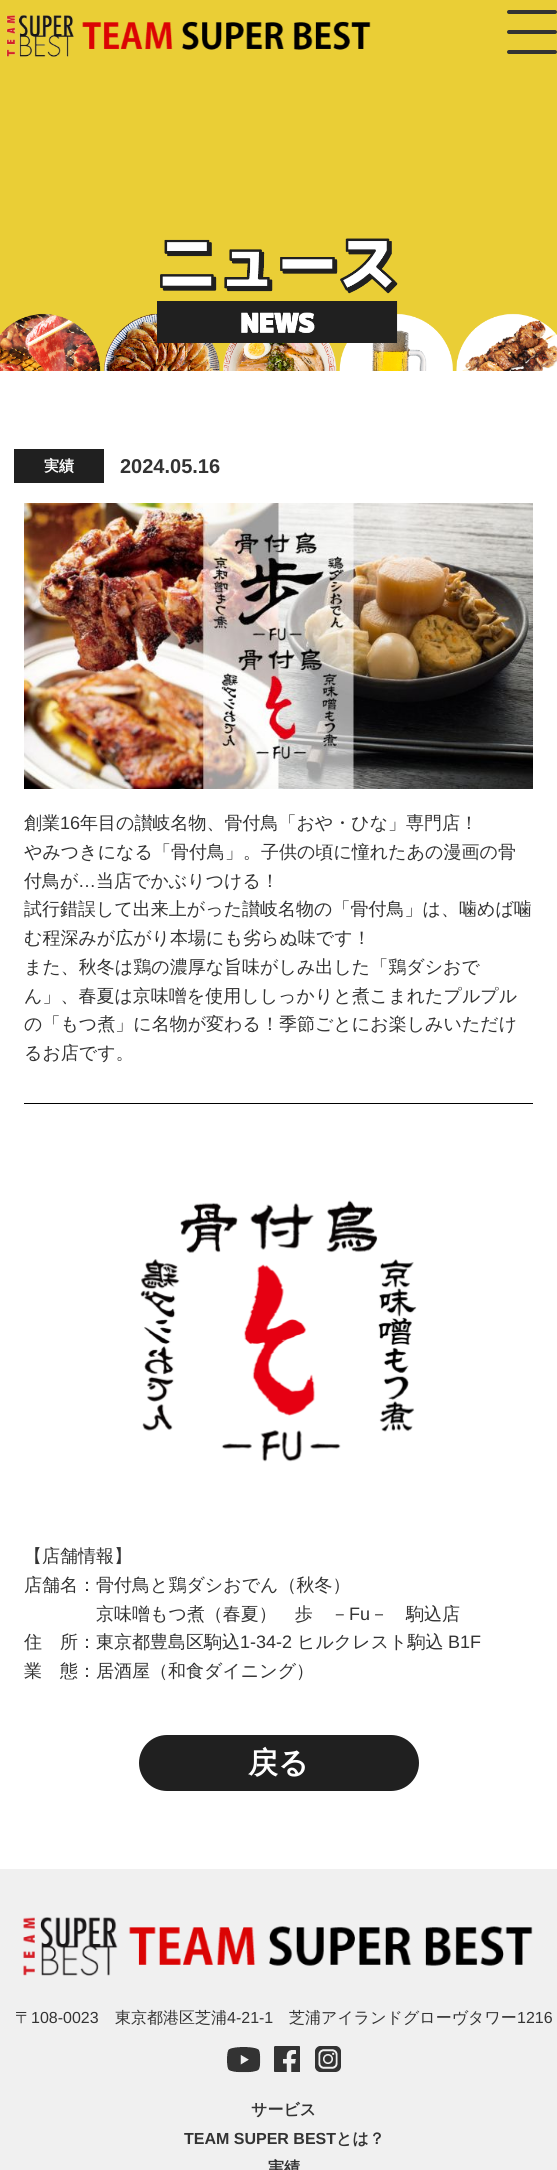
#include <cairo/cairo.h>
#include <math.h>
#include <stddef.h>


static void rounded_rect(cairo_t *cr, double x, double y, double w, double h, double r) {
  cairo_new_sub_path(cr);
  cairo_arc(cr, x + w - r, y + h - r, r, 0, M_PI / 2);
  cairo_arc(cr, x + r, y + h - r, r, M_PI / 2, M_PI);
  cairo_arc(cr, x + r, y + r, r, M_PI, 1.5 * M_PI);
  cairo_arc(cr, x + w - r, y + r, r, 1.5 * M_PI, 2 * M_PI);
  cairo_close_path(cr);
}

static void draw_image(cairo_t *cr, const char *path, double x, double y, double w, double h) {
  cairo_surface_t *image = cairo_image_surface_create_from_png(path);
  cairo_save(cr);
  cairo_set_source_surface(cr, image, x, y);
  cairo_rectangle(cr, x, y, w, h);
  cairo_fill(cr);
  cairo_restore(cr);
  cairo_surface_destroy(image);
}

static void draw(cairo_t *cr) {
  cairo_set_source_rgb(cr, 234 / 255.0, 206 / 255.0, 54 / 255.0);
  cairo_paint(cr);
  draw_image(cr, "images/1.png", 6, 15, 365, 42);
  cairo_set_source_rgb(cr, 51 / 255.0, 51 / 255.0, 51 / 255.0);
  rounded_rect(cr, 507, 10, 50, 4, 2);
  cairo_fill(cr);
  rounded_rect(cr, 507, 30, 50, 4, 2);
  cairo_fill(cr);
  rounded_rect(cr, 507, 50, 50, 4, 2);
  cairo_fill(cr);
  draw_image(cr, "images/2.png", 0, 313, 557, 58);
  draw_image(cr, "images/3.png", 157, 238, 241, 105);
  cairo_set_source_rgb(cr, 1, 1, 1);
  cairo_rectangle(cr, 0, 371, 557, 1498);
  cairo_fill(cr);
  cairo_set_source_rgb(cr, 32 / 255.0, 32 / 255.0, 32 / 255.0);
  cairo_rectangle(cr, 14, 449, 90, 34);
  cairo_fill(cr);
  draw_image(cr, "images/4.png", 24, 503, 509, 286);
  cairo_set_source_rgb(cr, 0, 0, 0);
  cairo_rectangle(cr, 24, 1103, 509, 1);
  cairo_fill(cr);
  draw_image(cr, "images/5.png", 140, 1200, 277, 262);
  cairo_set_source_rgb(cr, 32 / 255.0, 32 / 255.0, 32 / 255.0);
  rounded_rect(cr, 139, 1735, 280, 56, 28);
  cairo_fill(cr);
  cairo_set_source_rgb(cr, 240 / 255.0, 240 / 255.0, 240 / 255.0);
  cairo_rectangle(cr, 0, 1869, 557, 301);
  cairo_fill(cr);
  draw_image(cr, "images/6.png", 23, 1917, 510, 59);
  draw_image(cr, "images/7.png", 227, 2047, 34, 26);
  draw_image(cr, "images/8.png", 274, 2046, 26, 26);
  draw_image(cr, "images/9.png", 315, 2046, 26, 26);
  cairo_select_font_face(cr, "WenQuanYi Zen Hei", CAIRO_FONT_SLANT_NORMAL, CAIRO_FONT_WEIGHT_BOLD);
  cairo_set_font_size(cr, 15);
  cairo_set_source_rgb(cr, 1, 1, 1);
  cairo_move_to(cr, 44, 471);
  cairo_show_text(cr, "実績");
  cairo_select_font_face(cr, "Liberation Sans", CAIRO_FONT_SLANT_NORMAL, CAIRO_FONT_WEIGHT_BOLD);
  cairo_set_font_size(cr, 20);
  cairo_set_source_rgb(cr, 51 / 255.0, 51 / 255.0, 51 / 255.0);
  cairo_move_to(cr, 120, 473);
  cairo_show_text(cr, "2024.05.16");
  cairo_select_font_face(cr, "WenQuanYi Zen Hei Medium", CAIRO_FONT_SLANT_NORMAL, CAIRO_FONT_WEIGHT_NORMAL);
  cairo_set_font_size(cr, 18);
  cairo_move_to(cr, 24, 829);
  cairo_show_text(cr, "創業");
  cairo_select_font_face(cr, "Liberation Sans", CAIRO_FONT_SLANT_NORMAL, CAIRO_FONT_WEIGHT_NORMAL);
  cairo_move_to(cr, 60, 829);
  cairo_show_text(cr, "16");
  cairo_select_font_face(cr, "WenQuanYi Zen Hei Medium", CAIRO_FONT_SLANT_NORMAL, CAIRO_FONT_WEIGHT_NORMAL);
  cairo_move_to(cr, 80, 829);
  cairo_show_text(cr, "年目の讃岐名物、骨付鳥「おや・ひな」専門店！");
  cairo_move_to(cr, 24, 858);
  cairo_show_text(cr, "やみつきになる「骨付鳥」。子供の頃に憧れたあの漫画の骨");
  cairo_move_to(cr, 24, 887);
  cairo_show_text(cr, "付鳥が");
  cairo_select_font_face(cr, "Liberation Sans", CAIRO_FONT_SLANT_NORMAL, CAIRO_FONT_WEIGHT_NORMAL);
  cairo_move_to(cr, 78, 887);
  cairo_show_text(cr, "…");
  cairo_select_font_face(cr, "WenQuanYi Zen Hei Medium", CAIRO_FONT_SLANT_NORMAL, CAIRO_FONT_WEIGHT_NORMAL);
  cairo_move_to(cr, 96, 887);
  cairo_show_text(cr, "当店でかぶりつける！");
  cairo_move_to(cr, 24, 915);
  cairo_show_text(cr, "試行錯誤して出来上がった讃岐名物の「骨付鳥」は、噛めば噛");
  cairo_move_to(cr, 24, 944);
  cairo_show_text(cr, "む程深みが広がり本場にも劣らぬ味です！");
  cairo_move_to(cr, 24, 973);
  cairo_show_text(cr, "また、秋冬は鶏の濃厚な旨味がしみ出した「鶏ダシおで");
  cairo_move_to(cr, 24, 1002);
  cairo_show_text(cr, "ん」、春夏は京味噌を使用ししっかりと煮こまれたプルプル");
  cairo_move_to(cr, 24, 1030);
  cairo_show_text(cr, "の「もつ煮」に名物が変わる！季節ごとにお楽しみいただけ");
  cairo_move_to(cr, 24, 1059);
  cairo_show_text(cr, "るお店です。");
  cairo_move_to(cr, 24, 1562);
  cairo_show_text(cr, "【店舗情報】");
  cairo_move_to(cr, 24, 1591);
  cairo_show_text(cr, "店舗名：骨付鳥と鶏ダシおでん（秋冬）");
  cairo_move_to(cr, 96, 1620);
  cairo_show_text(cr, "京味噌もつ煮（春夏）　歩　－");
  cairo_select_font_face(cr, "Liberation Sans", CAIRO_FONT_SLANT_NORMAL, CAIRO_FONT_WEIGHT_NORMAL);
  cairo_move_to(cr, 349, 1620);
  cairo_show_text(cr, "Fu");
  cairo_select_font_face(cr, "WenQuanYi Zen Hei Medium", CAIRO_FONT_SLANT_NORMAL, CAIRO_FONT_WEIGHT_NORMAL);
  cairo_move_to(cr, 370, 1620);
  cairo_show_text(cr, "－　駒込店");
  cairo_move_to(cr, 24, 1648);
  cairo_show_text(cr, "住　所：東京都豊島区駒込");
  cairo_select_font_face(cr, "Liberation Sans", CAIRO_FONT_SLANT_NORMAL, CAIRO_FONT_WEIGHT_NORMAL);
  cairo_move_to(cr, 240, 1648);
  cairo_show_text(cr, "1-34-2");
  cairo_select_font_face(cr, "WenQuanYi Zen Hei Medium", CAIRO_FONT_SLANT_NORMAL, CAIRO_FONT_WEIGHT_NORMAL);
  cairo_move_to(cr, 297, 1648);
  cairo_show_text(cr, "ヒルクレスト駒込");
  cairo_select_font_face(cr, "Liberation Sans", CAIRO_FONT_SLANT_NORMAL, CAIRO_FONT_WEIGHT_NORMAL);
  cairo_move_to(cr, 448, 1648);
  cairo_show_text(cr, "B1F");
  cairo_select_font_face(cr, "WenQuanYi Zen Hei Medium", CAIRO_FONT_SLANT_NORMAL, CAIRO_FONT_WEIGHT_NORMAL);
  cairo_move_to(cr, 24, 1677);
  cairo_show_text(cr, "業　態：居酒屋（和食ダイニング）");
  cairo_select_font_face(cr, "WenQuanYi Zen Hei", CAIRO_FONT_SLANT_NORMAL, CAIRO_FONT_WEIGHT_BOLD);
  cairo_set_font_size(cr, 30);
  cairo_set_source_rgb(cr, 1, 1, 1);
  cairo_move_to(cr, 248, 1773);
  cairo_show_text(cr, "戻る");
  cairo_select_font_face(cr, "WenQuanYi Zen Hei Medium", CAIRO_FONT_SLANT_NORMAL, CAIRO_FONT_WEIGHT_NORMAL);
  cairo_set_font_size(cr, 16);
  cairo_set_source_rgb(cr, 51 / 255.0, 51 / 255.0, 51 / 255.0);
  cairo_move_to(cr, 15, 2023);
  cairo_show_text(cr, "〒");
  cairo_select_font_face(cr, "Liberation Sans", CAIRO_FONT_SLANT_NORMAL, CAIRO_FONT_WEIGHT_NORMAL);
  cairo_move_to(cr, 31, 2023);
  cairo_show_text(cr, "108-0023");
  cairo_select_font_face(cr, "WenQuanYi Zen Hei Medium", CAIRO_FONT_SLANT_NORMAL, CAIRO_FONT_WEIGHT_NORMAL);
  cairo_move_to(cr, 115, 2023);
  cairo_show_text(cr, "東京都港区芝浦");
  cairo_select_font_face(cr, "Liberation Sans", CAIRO_FONT_SLANT_NORMAL, CAIRO_FONT_WEIGHT_NORMAL);
  cairo_move_to(cr, 227, 2023);
  cairo_show_text(cr, "4-21-1");
  cairo_select_font_face(cr, "WenQuanYi Zen Hei Medium", CAIRO_FONT_SLANT_NORMAL, CAIRO_FONT_WEIGHT_NORMAL);
  cairo_move_to(cr, 289, 2023);
  cairo_show_text(cr, "芝浦アイランドグローヴタワー");
  cairo_select_font_face(cr, "Liberation Sans", CAIRO_FONT_SLANT_NORMAL, CAIRO_FONT_WEIGHT_NORMAL);
  cairo_move_to(cr, 517, 2023);
  cairo_show_text(cr, "1216");
  cairo_select_font_face(cr, "WenQuanYi Zen Hei", CAIRO_FONT_SLANT_NORMAL, CAIRO_FONT_WEIGHT_BOLD);
  cairo_move_to(cr, 251, 2115);
  cairo_show_text(cr, "サービス");
  cairo_select_font_face(cr, "Liberation Sans", CAIRO_FONT_SLANT_NORMAL, CAIRO_FONT_WEIGHT_BOLD);
  cairo_move_to(cr, 184, 2144);
  cairo_show_text(cr, "TEAM SUPER BEST");
  cairo_select_font_face(cr, "WenQuanYi Zen Hei", CAIRO_FONT_SLANT_NORMAL, CAIRO_FONT_WEIGHT_BOLD);
  cairo_move_to(cr, 336, 2144);
  cairo_show_text(cr, "とは？");
  cairo_move_to(cr, 268, 2173);
  cairo_show_text(cr, "実績");
}

int main(void) {
  cairo_surface_t *surface = cairo_image_surface_create(CAIRO_FORMAT_RGB24, 557, 2170);
  cairo_t *cr = cairo_create(surface);
  cairo_font_options_t *options = cairo_font_options_create();
  cairo_font_options_set_hint_metrics(options, CAIRO_HINT_METRICS_OFF);
  cairo_font_options_set_hint_style(options, CAIRO_HINT_STYLE_NONE);
  cairo_set_font_options(cr, options);
  cairo_set_miter_limit(cr, 4);
  draw(cr);
  cairo_surface_write_to_png(surface, "out.png");
  cairo_font_options_destroy(options);
  cairo_destroy(cr);
  cairo_surface_destroy(surface);
  return 0;
}
